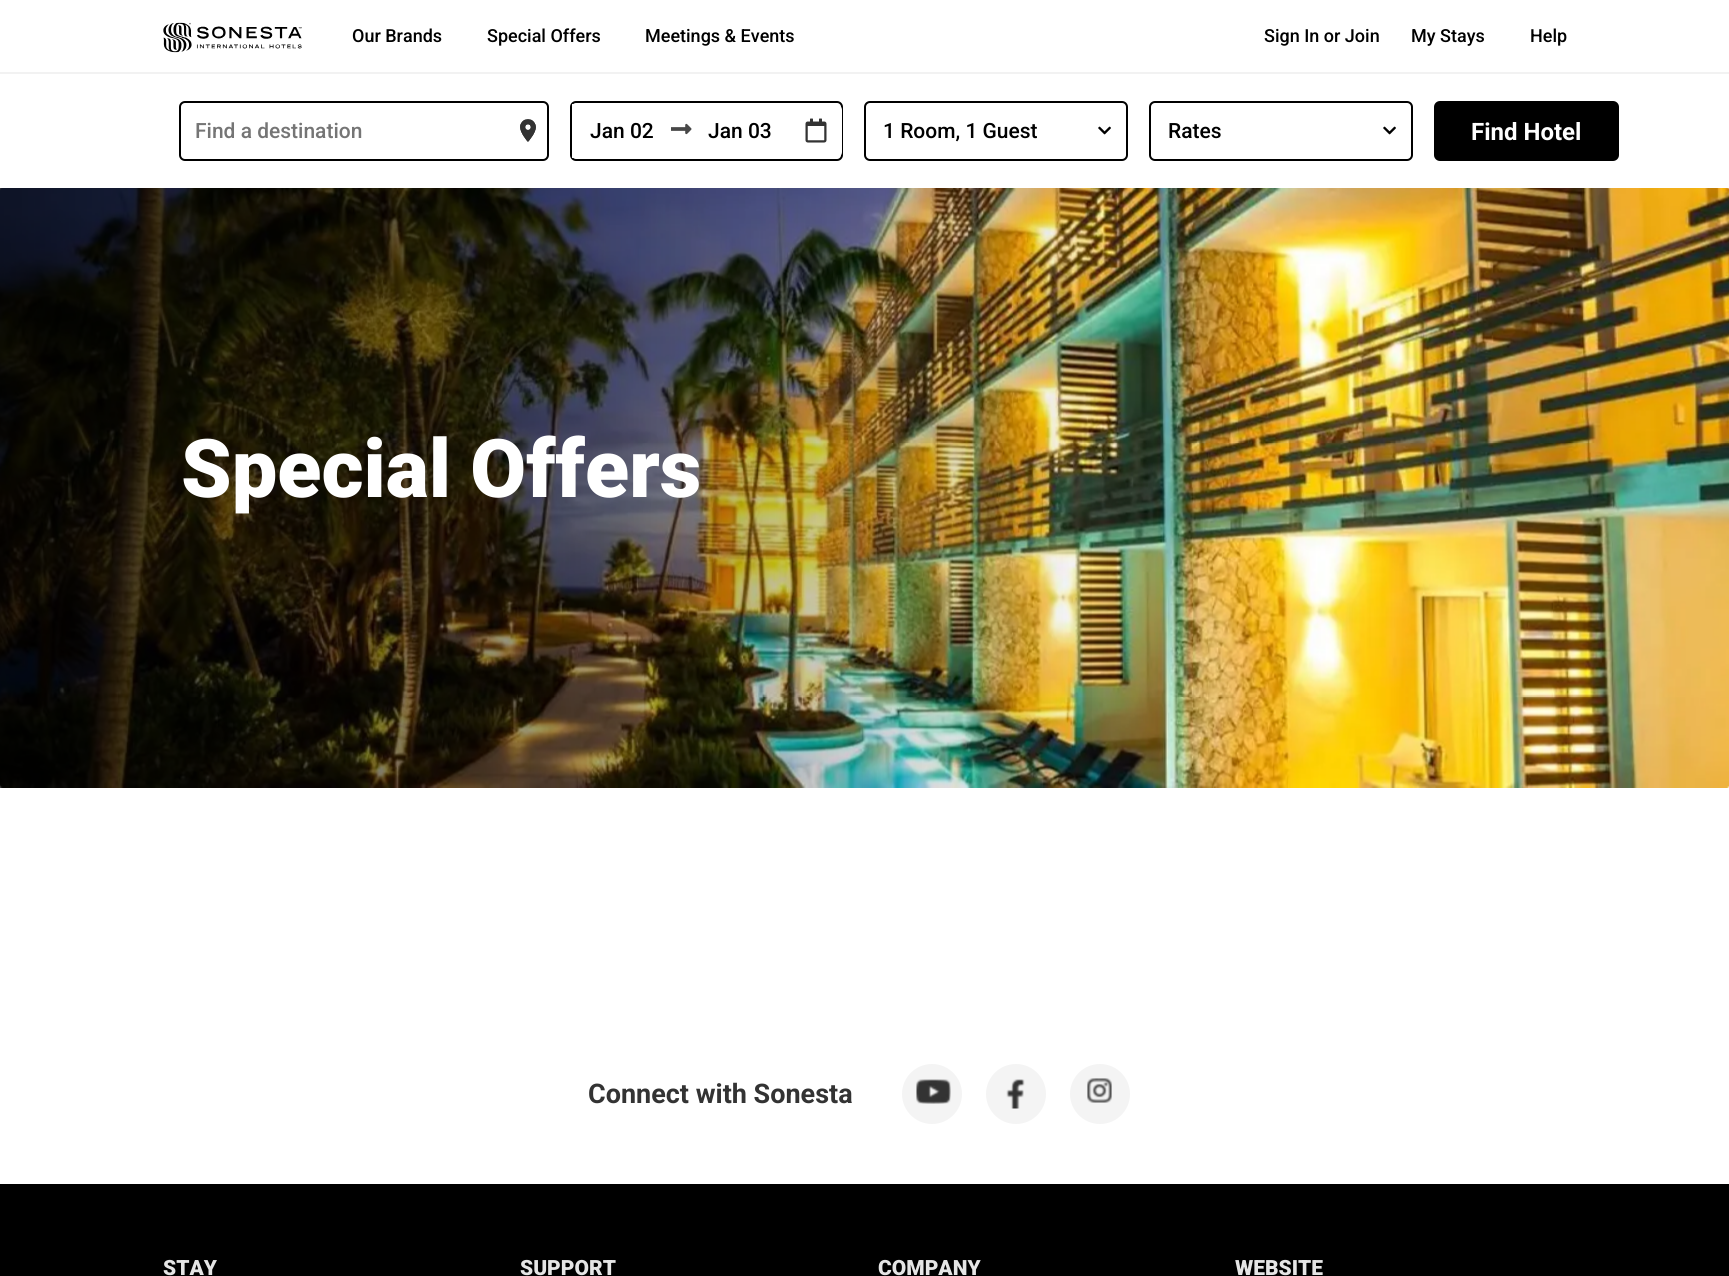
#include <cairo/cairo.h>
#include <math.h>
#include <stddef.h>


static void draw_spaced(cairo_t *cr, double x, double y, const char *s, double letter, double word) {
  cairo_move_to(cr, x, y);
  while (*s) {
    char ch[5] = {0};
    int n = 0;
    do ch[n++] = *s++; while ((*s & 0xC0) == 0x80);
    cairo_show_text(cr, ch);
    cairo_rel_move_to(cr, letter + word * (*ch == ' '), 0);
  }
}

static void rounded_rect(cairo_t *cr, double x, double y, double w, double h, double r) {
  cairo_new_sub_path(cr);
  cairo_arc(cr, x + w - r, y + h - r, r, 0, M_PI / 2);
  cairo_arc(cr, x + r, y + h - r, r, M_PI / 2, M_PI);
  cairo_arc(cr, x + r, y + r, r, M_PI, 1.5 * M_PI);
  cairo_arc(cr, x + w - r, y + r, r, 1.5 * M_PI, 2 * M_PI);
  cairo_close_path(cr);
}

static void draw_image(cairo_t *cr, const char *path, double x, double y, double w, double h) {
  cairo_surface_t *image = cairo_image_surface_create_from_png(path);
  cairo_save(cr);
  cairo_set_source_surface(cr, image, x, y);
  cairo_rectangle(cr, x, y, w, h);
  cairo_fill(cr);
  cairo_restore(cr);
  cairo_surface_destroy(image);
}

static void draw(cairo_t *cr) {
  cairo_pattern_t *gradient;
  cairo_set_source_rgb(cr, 1, 1, 1);
  cairo_paint(cr);
  cairo_set_source_rgb(cr, 242 / 255.0, 242 / 255.0, 242 / 255.0);
  cairo_rectangle(cr, 0, 72, 1729, 2);
  cairo_fill(cr);
  draw_image(cr, "images/1.png", 163, 22, 139, 31);
  rounded_rect(cr, 180, 102, 368, 58, 5);
  cairo_set_source_rgb(cr, 0, 0, 0);
  cairo_stroke(cr);
  draw_image(cr, "images/2.png", 520, 119, 16, 23);
  draw_image(cr, "images/3.png", 520, 119, 16, 23);
  rounded_rect(cr, 571, 102, 271, 58, 5);
  cairo_stroke(cr);
  cairo_set_source_rgb(cr, 1, 1, 1);
  rounded_rect(cr, 572, 104, 270, 54, 6);
  cairo_fill(cr);
  cairo_rectangle(cr, 572, 104, 2, 54);
  cairo_fill(cr);
  draw_image(cr, "images/4.png", 671, 123, 21, 12);
  draw_image(cr, "images/5.png", 805, 118, 22, 25);
  rounded_rect(cr, 865, 102, 262, 58, 5);
  cairo_set_source_rgb(cr, 0, 0, 0);
  cairo_stroke(cr);
  draw_image(cr, "images/6.png", 1098, 126, 13, 9);
  rounded_rect(cr, 1150, 102, 262, 58, 5);
  cairo_stroke(cr);
  draw_image(cr, "images/6.png", 1383, 126, 13, 9);
  rounded_rect(cr, 1435, 102, 183, 58, 5);
  cairo_fill_preserve(cr);
  cairo_stroke(cr);
  draw_image(cr, "images/7.png", 0, 188, 1729, 600);
  gradient = cairo_pattern_create_linear(0, 488, 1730, 487);
  cairo_pattern_add_color_stop_rgba(gradient, 0, 0, 0, 0, 0.75);
  cairo_pattern_add_color_stop_rgba(gradient, 0.65, 0, 0, 0, 0);
  cairo_set_source(cr, gradient);
  cairo_pattern_destroy(gradient);
  cairo_rectangle(cr, 0, 188, 1092, 600);
  cairo_fill(cr);
  cairo_set_source_rgb(cr, 244 / 255.0, 244 / 255.0, 244 / 255.0);
  cairo_arc(cr, 932, 1094, 30, 0, 2 * M_PI);
  cairo_fill(cr);
  draw_image(cr, "images/8.png", 916, 1079, 35, 25);
  cairo_arc(cr, 1016, 1094, 30, 0, 2 * M_PI);
  cairo_fill(cr);
  draw_image(cr, "images/9.png", 1006, 1079, 19, 30);
  cairo_arc(cr, 1100, 1094, 30, 0, 2 * M_PI);
  cairo_fill(cr);
  draw_image(cr, "images/10.png", 1087, 1078, 25, 25);
  cairo_set_source_rgb(cr, 0, 0, 0);
  cairo_rectangle(cr, 0, 1184, 1729, 92);
  cairo_fill(cr);
  cairo_select_font_face(cr, "Roboto Medium", CAIRO_FONT_SLANT_NORMAL, CAIRO_FONT_WEIGHT_NORMAL);
  cairo_set_font_size(cr, 18);
  cairo_move_to(cr, 352, 42);
  cairo_show_text(cr, "Our Brands");
  cairo_move_to(cr, 487, 42);
  cairo_show_text(cr, "Special Offers");
  cairo_move_to(cr, 645, 42);
  cairo_show_text(cr, "Meetings & Events");
  cairo_move_to(cr, 1264, 42);
  cairo_show_text(cr, "Sign In or Join");
  cairo_move_to(cr, 1411, 42);
  cairo_show_text(cr, "My Stays");
  cairo_move_to(cr, 1530, 42);
  cairo_show_text(cr, "Help");
  cairo_set_font_size(cr, 21);
  cairo_set_source_rgb(cr, 117 / 255.0, 117 / 255.0, 117 / 255.0);
  cairo_move_to(cr, 195, 138);
  cairo_show_text(cr, "Find a destination");
  cairo_set_source_rgb(cr, 0, 0, 0);
  cairo_move_to(cr, 590, 138);
  cairo_show_text(cr, "Jan 02");
  cairo_move_to(cr, 708, 138);
  cairo_show_text(cr, "Jan 03");
  cairo_move_to(cr, 883, 138);
  cairo_show_text(cr, "1 Room, 1 Guest");
  cairo_move_to(cr, 1168, 138);
  cairo_show_text(cr, "Rates");
  cairo_select_font_face(cr, "Roboto", CAIRO_FONT_SLANT_NORMAL, CAIRO_FONT_WEIGHT_BOLD);
  cairo_set_font_size(cr, 24);
  cairo_set_source_rgb(cr, 1, 1, 1);
  cairo_move_to(cr, 1471, 140);
  cairo_show_text(cr, "Find Hotel");
  cairo_select_font_face(cr, "Roboto Black", CAIRO_FONT_SLANT_NORMAL, CAIRO_FONT_WEIGHT_NORMAL);
  cairo_set_font_size(cr, 81);
  draw_spaced(cr, 181, 497, "Special Offers", 0, -1);
  cairo_select_font_face(cr, "Roboto", CAIRO_FONT_SLANT_NORMAL, CAIRO_FONT_WEIGHT_BOLD);
  cairo_set_font_size(cr, 27);
  cairo_set_source_rgb(cr, 51 / 255.0, 51 / 255.0, 51 / 255.0);
  cairo_move_to(cr, 588, 1103);
  cairo_show_text(cr, "Connect with Sonesta");
  cairo_select_font_face(cr, "Roboto Black", CAIRO_FONT_SLANT_NORMAL, CAIRO_FONT_WEIGHT_NORMAL);
  cairo_set_font_size(cr, 21);
  cairo_set_source_rgb(cr, 229 / 255.0, 229 / 255.0, 229 / 255.0);
  cairo_move_to(cr, 163, 1275);
  cairo_show_text(cr, "STAY");
  cairo_move_to(cr, 520, 1275);
  cairo_show_text(cr, "SUPPORT");
  cairo_move_to(cr, 878, 1275);
  cairo_show_text(cr, "COMPANY");
  cairo_move_to(cr, 1235, 1275);
  cairo_show_text(cr, "WEBSITE");
}

int main(void) {
  cairo_surface_t *surface = cairo_image_surface_create(CAIRO_FORMAT_RGB24, 1729, 1276);
  cairo_t *cr = cairo_create(surface);
  cairo_font_options_t *options = cairo_font_options_create();
  cairo_font_options_set_hint_metrics(options, CAIRO_HINT_METRICS_OFF);
  cairo_font_options_set_hint_style(options, CAIRO_HINT_STYLE_NONE);
  cairo_set_font_options(cr, options);
  cairo_set_miter_limit(cr, 4);
  draw(cr);
  cairo_surface_write_to_png(surface, "out.png");
  cairo_font_options_destroy(options);
  cairo_destroy(cr);
  cairo_surface_destroy(surface);
  return 0;
}
